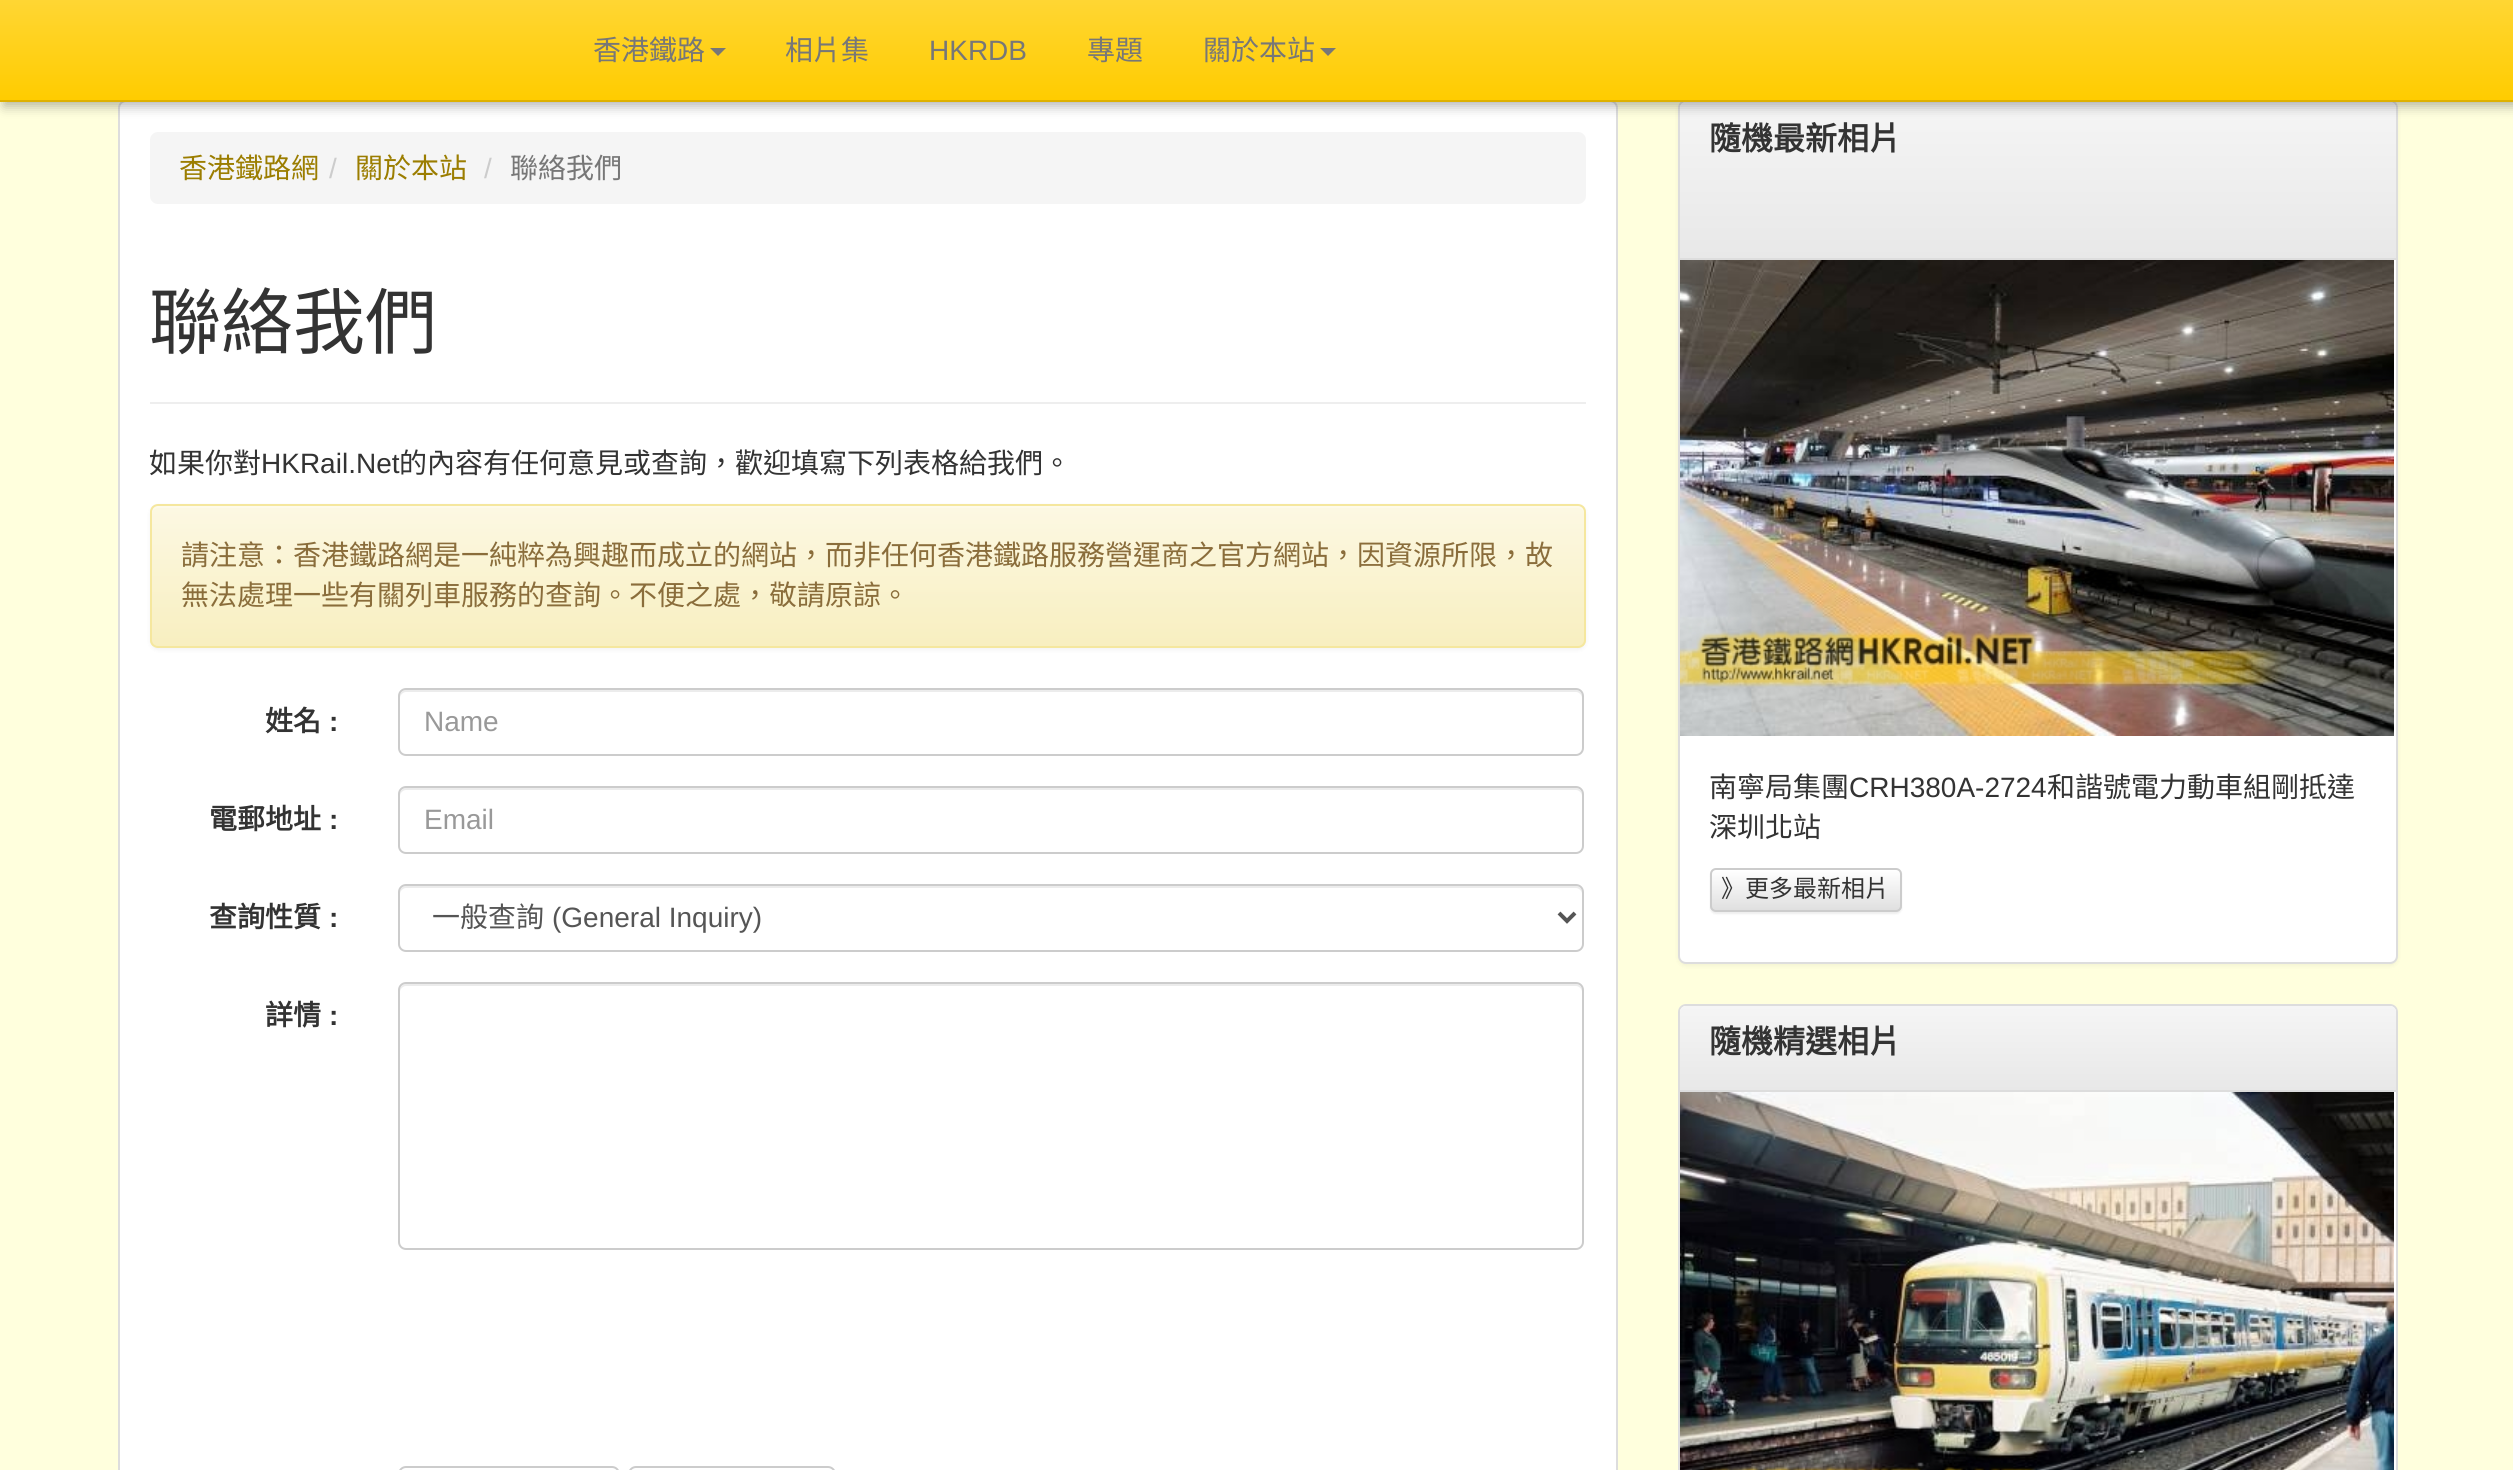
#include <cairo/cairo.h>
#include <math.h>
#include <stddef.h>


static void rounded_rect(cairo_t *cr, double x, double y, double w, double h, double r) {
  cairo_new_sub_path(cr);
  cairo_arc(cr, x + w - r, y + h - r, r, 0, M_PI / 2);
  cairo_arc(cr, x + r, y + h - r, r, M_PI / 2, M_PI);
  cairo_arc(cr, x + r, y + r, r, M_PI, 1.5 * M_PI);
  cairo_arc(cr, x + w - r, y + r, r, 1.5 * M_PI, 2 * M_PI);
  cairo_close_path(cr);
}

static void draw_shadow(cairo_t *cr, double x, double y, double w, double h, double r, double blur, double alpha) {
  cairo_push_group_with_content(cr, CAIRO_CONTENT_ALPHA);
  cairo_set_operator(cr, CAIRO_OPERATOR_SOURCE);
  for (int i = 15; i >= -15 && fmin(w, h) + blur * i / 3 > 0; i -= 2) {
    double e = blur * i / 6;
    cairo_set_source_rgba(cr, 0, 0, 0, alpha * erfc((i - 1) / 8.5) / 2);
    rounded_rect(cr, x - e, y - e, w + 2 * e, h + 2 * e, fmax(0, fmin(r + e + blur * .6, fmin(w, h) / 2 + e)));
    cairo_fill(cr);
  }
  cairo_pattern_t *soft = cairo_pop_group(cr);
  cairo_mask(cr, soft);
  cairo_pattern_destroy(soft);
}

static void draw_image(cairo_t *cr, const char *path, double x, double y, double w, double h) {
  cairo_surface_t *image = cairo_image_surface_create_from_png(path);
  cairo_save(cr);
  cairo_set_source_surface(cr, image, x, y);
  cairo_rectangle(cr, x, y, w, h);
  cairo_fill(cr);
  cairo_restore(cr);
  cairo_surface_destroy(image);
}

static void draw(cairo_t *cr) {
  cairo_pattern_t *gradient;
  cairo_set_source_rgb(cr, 1, 1, 221 / 255.0);
  cairo_paint(cr);
  cairo_set_source_rgb(cr, 1, 1, 1);
  rounded_rect(cr, 119, 101, 1498, 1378, 7);
  cairo_fill_preserve(cr);
  cairo_set_source_rgb(cr, 221 / 255.0, 221 / 255.0, 221 / 255.0);
  cairo_stroke(cr);
  cairo_set_source_rgb(cr, 0, 0, 0);
  draw_shadow(cr, 1678, 102, 720, 864, 8, 2, 0.05);
  cairo_set_source_rgb(cr, 1, 1, 1);
  rounded_rect(cr, 1679, 101, 718, 862, 7);
  cairo_fill_preserve(cr);
  cairo_set_source_rgb(cr, 221 / 255.0, 221 / 255.0, 221 / 255.0);
  cairo_stroke(cr);
  gradient = cairo_pattern_create_linear(2038, 102, 2038, 258);
  cairo_pattern_add_color_stop_rgba(gradient, 0, 245 / 255.0, 245 / 255.0, 245 / 255.0, 1);
  cairo_pattern_add_color_stop_rgba(gradient, 1, 232 / 255.0, 232 / 255.0, 232 / 255.0, 1);
  cairo_set_source(cr, gradient);
  cairo_pattern_destroy(gradient);
  cairo_new_path(cr);
  cairo_move_to(cr, 1686, 102);
  cairo_line_to(cr, 2390, 102);
  cairo_curve_to(cr, 2393.5, 102, 2396, 104.5, 2396, 108);
  cairo_line_to(cr, 2396, 258);
  cairo_line_to(cr, 1680, 258);
  cairo_line_to(cr, 1680, 108);
  cairo_curve_to(cr, 1680, 104.5, 1682.5, 102, 1686, 102);
  cairo_close_path(cr);
  cairo_fill(cr);
  cairo_set_source_rgb(cr, 0, 0, 0);
  draw_shadow(cr, 4, 4, 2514, 102, 0, 6, 0.3);
  gradient = cairo_pattern_create_linear(1257, 0, 1257, 100);
  cairo_pattern_add_color_stop_rgba(gradient, 0, 1, 214 / 255.0, 51 / 255.0, 1);
  cairo_pattern_add_color_stop_rgba(gradient, 1, 1, 204 / 255.0, 0, 1);
  cairo_set_source(cr, gradient);
  cairo_pattern_destroy(gradient);
  cairo_rectangle(cr, 0, 0, 2513, 100);
  cairo_fill(cr);
  cairo_set_source_rgb(cr, 222 / 255.0, 177 / 255.0, 0);
  cairo_rectangle(cr, 0, 100, 2513, 2);
  cairo_fill(cr);
  cairo_set_source_rgb(cr, 119 / 255.0, 119 / 255.0, 119 / 255.0);
  cairo_new_path(cr);
  cairo_move_to(cr, 710, 48);
  cairo_line_to(cr, 726, 48);
  cairo_line_to(cr, 718, 56);
  cairo_close_path(cr);
  cairo_fill(cr);
  cairo_new_path(cr);
  cairo_move_to(cr, 1320, 48);
  cairo_line_to(cr, 1336, 48);
  cairo_line_to(cr, 1328, 56);
  cairo_close_path(cr);
  cairo_fill(cr);
  cairo_set_source_rgb(cr, 245 / 255.0, 245 / 255.0, 245 / 255.0);
  rounded_rect(cr, 150, 132, 1436, 72, 8);
  cairo_fill(cr);
  cairo_set_source_rgb(cr, 238 / 255.0, 238 / 255.0, 238 / 255.0);
  cairo_rectangle(cr, 150, 402, 1436, 2);
  cairo_fill(cr);
  cairo_set_source_rgb(cr, 0, 0, 0);
  draw_shadow(cr, 150, 506, 1436, 144, 8, 2, 0.05);
  cairo_save(cr);
  rounded_rect(cr, 150, 504, 1436, 144, 8);
  cairo_clip(cr);
  gradient = cairo_pattern_create_linear(868, 506, 868, 646);
  cairo_pattern_add_color_stop_rgba(gradient, 0, 252 / 255.0, 248 / 255.0, 227 / 255.0, 1);
  cairo_pattern_add_color_stop_rgba(gradient, 1, 248 / 255.0, 239 / 255.0, 192 / 255.0, 1);
  cairo_set_source(cr, gradient);
  cairo_pattern_destroy(gradient);
  cairo_rectangle(cr, 150, 506, 1436, 140);
  cairo_fill(cr);
  cairo_restore(cr);
  cairo_set_source_rgb(cr, 253 / 255.0, 250 / 255.0, 234 / 255.0);
  cairo_new_path(cr);
  cairo_move_to(cr, 158, 508);
  cairo_line_to(cr, 1578, 508);
  cairo_curve_to(cr, 1581, 508, 1584, 511, 1584, 514);
  cairo_curve_to(cr, 1584, 510, 1583, 506, 1578, 506);
  cairo_line_to(cr, 158, 506);
  cairo_curve_to(cr, 153, 506, 152, 510, 152, 514);
  cairo_curve_to(cr, 152, 511, 155, 508, 158, 508);
  cairo_close_path(cr);
  cairo_fill(cr);
  rounded_rect(cr, 151, 505, 1434, 142, 7);
  cairo_set_source_rgb(cr, 245 / 255.0, 231 / 255.0, 158 / 255.0);
  cairo_stroke(cr);
  cairo_set_source_rgb(cr, 236 / 255.0, 236 / 255.0, 236 / 255.0);
  cairo_new_path(cr);
  cairo_move_to(cr, 406, 692);
  cairo_line_to(cr, 1576, 692);
  cairo_curve_to(cr, 1579, 692, 1582, 695, 1582, 698);
  cairo_line_to(cr, 1582, 696);
  cairo_curve_to(cr, 1582, 693, 1579, 690, 1576, 690);
  cairo_line_to(cr, 406, 690);
  cairo_curve_to(cr, 403, 690, 400, 693, 400, 696);
  cairo_line_to(cr, 400, 698);
  cairo_curve_to(cr, 400, 695, 403, 692, 406, 692);
  cairo_close_path(cr);
  cairo_fill(cr);
  rounded_rect(cr, 399, 689, 1184, 66, 7);
  cairo_set_source_rgb(cr, 204 / 255.0, 204 / 255.0, 204 / 255.0);
  cairo_stroke(cr);
  cairo_set_source_rgb(cr, 236 / 255.0, 236 / 255.0, 236 / 255.0);
  cairo_new_path(cr);
  cairo_move_to(cr, 406, 790);
  cairo_line_to(cr, 1576, 790);
  cairo_curve_to(cr, 1579, 790, 1582, 793, 1582, 796);
  cairo_line_to(cr, 1582, 794);
  cairo_curve_to(cr, 1582, 791, 1579, 788, 1576, 788);
  cairo_line_to(cr, 406, 788);
  cairo_curve_to(cr, 403, 788, 400, 791, 400, 794);
  cairo_line_to(cr, 400, 796);
  cairo_curve_to(cr, 400, 793, 403, 790, 406, 790);
  cairo_close_path(cr);
  cairo_fill(cr);
  rounded_rect(cr, 399, 787, 1184, 66, 7);
  cairo_set_source_rgb(cr, 204 / 255.0, 204 / 255.0, 204 / 255.0);
  cairo_stroke(cr);
  cairo_set_source_rgb(cr, 236 / 255.0, 236 / 255.0, 236 / 255.0);
  cairo_new_path(cr);
  cairo_move_to(cr, 406, 888);
  cairo_line_to(cr, 1576, 888);
  cairo_curve_to(cr, 1579, 888, 1582, 891, 1582, 894);
  cairo_line_to(cr, 1582, 892);
  cairo_curve_to(cr, 1582, 889, 1579, 886, 1576, 886);
  cairo_line_to(cr, 406, 886);
  cairo_curve_to(cr, 403, 886, 400, 889, 400, 892);
  cairo_line_to(cr, 400, 894);
  cairo_curve_to(cr, 400, 891, 403, 888, 406, 888);
  cairo_close_path(cr);
  cairo_fill(cr);
  rounded_rect(cr, 399, 885, 1184, 66, 7);
  cairo_set_source_rgb(cr, 204 / 255.0, 204 / 255.0, 204 / 255.0);
  cairo_stroke(cr);
  cairo_new_path(cr);
  cairo_move_to(cr, 1559, 913);
  cairo_line_to(cr, 1567, 921);
  cairo_line_to(cr, 1575, 913);
  cairo_set_source_rgb(cr, 85 / 255.0, 85 / 255.0, 85 / 255.0);
  cairo_set_line_width(cr, 4);
  cairo_stroke(cr);
  cairo_set_source_rgb(cr, 236 / 255.0, 236 / 255.0, 236 / 255.0);
  cairo_new_path(cr);
  cairo_move_to(cr, 406, 986);
  cairo_line_to(cr, 1576, 986);
  cairo_curve_to(cr, 1579, 986, 1582, 989, 1582, 992);
  cairo_line_to(cr, 1582, 990);
  cairo_curve_to(cr, 1582, 987, 1579, 984, 1576, 984);
  cairo_line_to(cr, 406, 984);
  cairo_curve_to(cr, 403, 984, 400, 987, 400, 990);
  cairo_line_to(cr, 400, 992);
  cairo_curve_to(cr, 400, 989, 403, 986, 406, 986);
  cairo_close_path(cr);
  cairo_fill(cr);
  rounded_rect(cr, 399, 983, 1184, 266, 7);
  cairo_set_source_rgb(cr, 204 / 255.0, 204 / 255.0, 204 / 255.0);
  cairo_set_line_width(cr, 2);
  cairo_stroke(cr);
  rounded_rect(cr, 399, 1467, 220, 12, 7);
  cairo_stroke(cr);
  rounded_rect(cr, 629, 1467, 206, 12, 7);
  cairo_stroke(cr);
  cairo_set_source_rgb(cr, 221 / 255.0, 221 / 255.0, 221 / 255.0);
  cairo_rectangle(cr, 1680, 258, 716, 2);
  cairo_fill(cr);
  draw_image(cr, "images/1.png", 1680, 260, 714, 476);
  cairo_set_source_rgb(cr, 0, 0, 0);
  draw_shadow(cr, 1710, 870, 192, 44, 6, 1, 0.07);
  cairo_save(cr);
  rounded_rect(cr, 1710, 868, 192, 44, 6);
  cairo_clip(cr);
  gradient = cairo_pattern_create_linear(1806, 870, 1806, 910);
  cairo_pattern_add_color_stop_rgba(gradient, 0, 1, 1, 1, 1);
  cairo_pattern_add_color_stop_rgba(gradient, 1, 224 / 255.0, 224 / 255.0, 224 / 255.0, 1);
  cairo_set_source(cr, gradient);
  cairo_pattern_destroy(gradient);
  cairo_rectangle(cr, 1710, 870, 192, 40);
  cairo_fill(cr);
  cairo_restore(cr);
  rounded_rect(cr, 1711, 869, 190, 42, 5);
  cairo_set_source_rgb(cr, 204 / 255.0, 204 / 255.0, 204 / 255.0);
  cairo_stroke(cr);
  cairo_set_source_rgb(cr, 1, 1, 1);
  rounded_rect(cr, 1679, 1005, 718, 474, 7);
  cairo_fill_preserve(cr);
  cairo_set_source_rgb(cr, 221 / 255.0, 221 / 255.0, 221 / 255.0);
  cairo_stroke(cr);
  gradient = cairo_pattern_create_linear(2038, 1006, 2038, 1090);
  cairo_pattern_add_color_stop_rgba(gradient, 0, 245 / 255.0, 245 / 255.0, 245 / 255.0, 1);
  cairo_pattern_add_color_stop_rgba(gradient, 1, 232 / 255.0, 232 / 255.0, 232 / 255.0, 1);
  cairo_set_source(cr, gradient);
  cairo_pattern_destroy(gradient);
  cairo_new_path(cr);
  cairo_move_to(cr, 1686, 1006);
  cairo_line_to(cr, 2390, 1006);
  cairo_curve_to(cr, 2393.5, 1006, 2396, 1008.5, 2396, 1012);
  cairo_line_to(cr, 2396, 1090);
  cairo_line_to(cr, 1680, 1090);
  cairo_line_to(cr, 1680, 1012);
  cairo_curve_to(cr, 1680, 1008.5, 1682.5, 1006, 1686, 1006);
  cairo_close_path(cr);
  cairo_fill(cr);
  cairo_set_source_rgb(cr, 221 / 255.0, 221 / 255.0, 221 / 255.0);
  cairo_rectangle(cr, 1680, 1090, 716, 2);
  cairo_fill(cr);
  draw_image(cr, "images/2.png", 1680, 1092, 714, 378);
  cairo_select_font_face(cr, "Noto Sans CJK TC", CAIRO_FONT_SLANT_NORMAL, CAIRO_FONT_WEIGHT_NORMAL);
  cairo_set_font_size(cr, 28);
  cairo_set_source_rgb(cr, 119 / 255.0, 119 / 255.0, 119 / 255.0);
  cairo_move_to(cr, 593, 60);
  cairo_show_text(cr, "香港鐵路");
  cairo_move_to(cr, 785, 60);
  cairo_show_text(cr, "相片集");
  cairo_select_font_face(cr, "Liberation Sans", CAIRO_FONT_SLANT_NORMAL, CAIRO_FONT_WEIGHT_NORMAL);
  cairo_move_to(cr, 929, 60);
  cairo_show_text(cr, "HKRDB");
  cairo_select_font_face(cr, "Noto Sans CJK TC", CAIRO_FONT_SLANT_NORMAL, CAIRO_FONT_WEIGHT_NORMAL);
  cairo_move_to(cr, 1087, 60);
  cairo_show_text(cr, "專題");
  cairo_move_to(cr, 1203, 60);
  cairo_show_text(cr, "關於本站");
  cairo_set_source_rgb(cr, 155 / 255.0, 125 / 255.0, 0);
  cairo_move_to(cr, 179, 178);
  cairo_show_text(cr, "香港鐵路網");
  cairo_select_font_face(cr, "Liberation Sans", CAIRO_FONT_SLANT_NORMAL, CAIRO_FONT_WEIGHT_NORMAL);
  cairo_set_source_rgb(cr, 204 / 255.0, 204 / 255.0, 204 / 255.0);
  cairo_move_to(cr, 329, 178);
  cairo_show_text(cr, "/");
  cairo_select_font_face(cr, "Noto Sans CJK TC", CAIRO_FONT_SLANT_NORMAL, CAIRO_FONT_WEIGHT_NORMAL);
  cairo_set_source_rgb(cr, 155 / 255.0, 125 / 255.0, 0);
  cairo_move_to(cr, 355, 178);
  cairo_show_text(cr, "關於本站");
  cairo_select_font_face(cr, "Liberation Sans", CAIRO_FONT_SLANT_NORMAL, CAIRO_FONT_WEIGHT_NORMAL);
  cairo_set_source_rgb(cr, 204 / 255.0, 204 / 255.0, 204 / 255.0);
  cairo_move_to(cr, 484, 178);
  cairo_show_text(cr, "/");
  cairo_select_font_face(cr, "Noto Sans CJK TC", CAIRO_FONT_SLANT_NORMAL, CAIRO_FONT_WEIGHT_NORMAL);
  cairo_set_source_rgb(cr, 119 / 255.0, 119 / 255.0, 119 / 255.0);
  cairo_move_to(cr, 510, 178);
  cairo_show_text(cr, "聯絡我們");
  cairo_set_font_size(cr, 72);
  cairo_set_source_rgb(cr, 51 / 255.0, 51 / 255.0, 51 / 255.0);
  cairo_move_to(cr, 149, 348);
  cairo_show_text(cr, "聯絡我們");
  cairo_set_font_size(cr, 28);
  cairo_move_to(cr, 149, 473);
  cairo_show_text(cr, "如果你對");
  cairo_select_font_face(cr, "Liberation Sans", CAIRO_FONT_SLANT_NORMAL, CAIRO_FONT_WEIGHT_NORMAL);
  cairo_move_to(cr, 261, 473);
  cairo_show_text(cr, "HKRail.Net");
  cairo_select_font_face(cr, "Noto Sans CJK TC", CAIRO_FONT_SLANT_NORMAL, CAIRO_FONT_WEIGHT_NORMAL);
  cairo_move_to(cr, 399, 473);
  cairo_show_text(cr, "的內容有任何意見或查詢，歡迎填寫下列表格給我們。");
  cairo_set_source_rgb(cr, 138 / 255.0, 109 / 255.0, 59 / 255.0);
  cairo_move_to(cr, 181, 565);
  cairo_show_text(cr, "請注意：香港鐵路網是一純粹為興趣而成立的網站，而非任何香港鐵路服務營運商之官方網站，因資源所限，故");
  cairo_move_to(cr, 181, 605);
  cairo_show_text(cr, "無法處理一些有關列車服務的查詢。不便之處，敬請原諒。");
  cairo_select_font_face(cr, "Noto Sans CJK TC", CAIRO_FONT_SLANT_NORMAL, CAIRO_FONT_WEIGHT_BOLD);
  cairo_set_source_rgb(cr, 51 / 255.0, 51 / 255.0, 51 / 255.0);
  cairo_move_to(cr, 265, 731);
  cairo_show_text(cr, "姓名");
  cairo_select_font_face(cr, "Liberation Sans", CAIRO_FONT_SLANT_NORMAL, CAIRO_FONT_WEIGHT_BOLD);
  cairo_move_to(cr, 329, 731);
  cairo_show_text(cr, ":");
  cairo_select_font_face(cr, "Liberation Sans", CAIRO_FONT_SLANT_NORMAL, CAIRO_FONT_WEIGHT_NORMAL);
  cairo_set_source_rgb(cr, 153 / 255.0, 153 / 255.0, 153 / 255.0);
  cairo_move_to(cr, 424, 731);
  cairo_show_text(cr, "Name");
  cairo_select_font_face(cr, "Noto Sans CJK TC", CAIRO_FONT_SLANT_NORMAL, CAIRO_FONT_WEIGHT_BOLD);
  cairo_set_source_rgb(cr, 51 / 255.0, 51 / 255.0, 51 / 255.0);
  cairo_move_to(cr, 209, 829);
  cairo_show_text(cr, "電郵地址");
  cairo_select_font_face(cr, "Liberation Sans", CAIRO_FONT_SLANT_NORMAL, CAIRO_FONT_WEIGHT_BOLD);
  cairo_move_to(cr, 329, 829);
  cairo_show_text(cr, ":");
  cairo_select_font_face(cr, "Liberation Sans", CAIRO_FONT_SLANT_NORMAL, CAIRO_FONT_WEIGHT_NORMAL);
  cairo_set_source_rgb(cr, 153 / 255.0, 153 / 255.0, 153 / 255.0);
  cairo_move_to(cr, 424, 829);
  cairo_show_text(cr, "Email");
  cairo_select_font_face(cr, "Noto Sans CJK TC", CAIRO_FONT_SLANT_NORMAL, CAIRO_FONT_WEIGHT_BOLD);
  cairo_set_source_rgb(cr, 51 / 255.0, 51 / 255.0, 51 / 255.0);
  cairo_move_to(cr, 209, 927);
  cairo_show_text(cr, "查詢性質");
  cairo_select_font_face(cr, "Liberation Sans", CAIRO_FONT_SLANT_NORMAL, CAIRO_FONT_WEIGHT_BOLD);
  cairo_move_to(cr, 329, 927);
  cairo_show_text(cr, ":");
  cairo_select_font_face(cr, "Noto Sans CJK TC", CAIRO_FONT_SLANT_NORMAL, CAIRO_FONT_WEIGHT_NORMAL);
  cairo_set_source_rgb(cr, 85 / 255.0, 85 / 255.0, 85 / 255.0);
  cairo_move_to(cr, 432, 927);
  cairo_show_text(cr, "一般查詢");
  cairo_select_font_face(cr, "Liberation Sans", CAIRO_FONT_SLANT_NORMAL, CAIRO_FONT_WEIGHT_NORMAL);
  cairo_move_to(cr, 552, 927);
  cairo_show_text(cr, "(General Inquiry)");
  cairo_select_font_face(cr, "Noto Sans CJK TC", CAIRO_FONT_SLANT_NORMAL, CAIRO_FONT_WEIGHT_BOLD);
  cairo_set_source_rgb(cr, 51 / 255.0, 51 / 255.0, 51 / 255.0);
  cairo_move_to(cr, 265, 1025);
  cairo_show_text(cr, "詳情");
  cairo_select_font_face(cr, "Liberation Sans", CAIRO_FONT_SLANT_NORMAL, CAIRO_FONT_WEIGHT_BOLD);
  cairo_move_to(cr, 329, 1025);
  cairo_show_text(cr, ":");
  cairo_select_font_face(cr, "Noto Sans CJK TC", CAIRO_FONT_SLANT_NORMAL, CAIRO_FONT_WEIGHT_BOLD);
  cairo_set_font_size(cr, 32);
  cairo_move_to(cr, 1709, 150);
  cairo_show_text(cr, "隨機最新相片");
  cairo_select_font_face(cr, "Noto Sans CJK TC", CAIRO_FONT_SLANT_NORMAL, CAIRO_FONT_WEIGHT_NORMAL);
  cairo_set_font_size(cr, 28);
  cairo_move_to(cr, 1709, 797);
  cairo_show_text(cr, "南寧局集團");
  cairo_select_font_face(cr, "Liberation Sans", CAIRO_FONT_SLANT_NORMAL, CAIRO_FONT_WEIGHT_NORMAL);
  cairo_move_to(cr, 1849, 797);
  cairo_show_text(cr, "CRH380A-2724");
  cairo_select_font_face(cr, "Noto Sans CJK TC", CAIRO_FONT_SLANT_NORMAL, CAIRO_FONT_WEIGHT_NORMAL);
  cairo_move_to(cr, 2047, 797);
  cairo_show_text(cr, "和諧號電力動車組剛抵達");
  cairo_move_to(cr, 1709, 837);
  cairo_show_text(cr, "深圳北站");
  cairo_set_font_size(cr, 24);
  cairo_move_to(cr, 1721, 897);
  cairo_show_text(cr, "》更多最新相片");
  cairo_select_font_face(cr, "Noto Sans CJK TC", CAIRO_FONT_SLANT_NORMAL, CAIRO_FONT_WEIGHT_BOLD);
  cairo_set_font_size(cr, 32);
  cairo_move_to(cr, 1709, 1053);
  cairo_show_text(cr, "隨機精選相片");
}

int main(void) {
  cairo_surface_t *surface = cairo_image_surface_create(CAIRO_FORMAT_RGB24, 2513, 1470);
  cairo_t *cr = cairo_create(surface);
  cairo_font_options_t *options = cairo_font_options_create();
  cairo_font_options_set_hint_metrics(options, CAIRO_HINT_METRICS_OFF);
  cairo_font_options_set_hint_style(options, CAIRO_HINT_STYLE_NONE);
  cairo_set_font_options(cr, options);
  cairo_set_miter_limit(cr, 4);
  draw(cr);
  cairo_surface_write_to_png(surface, "out.png");
  cairo_font_options_destroy(options);
  cairo_destroy(cr);
  cairo_surface_destroy(surface);
  return 0;
}
